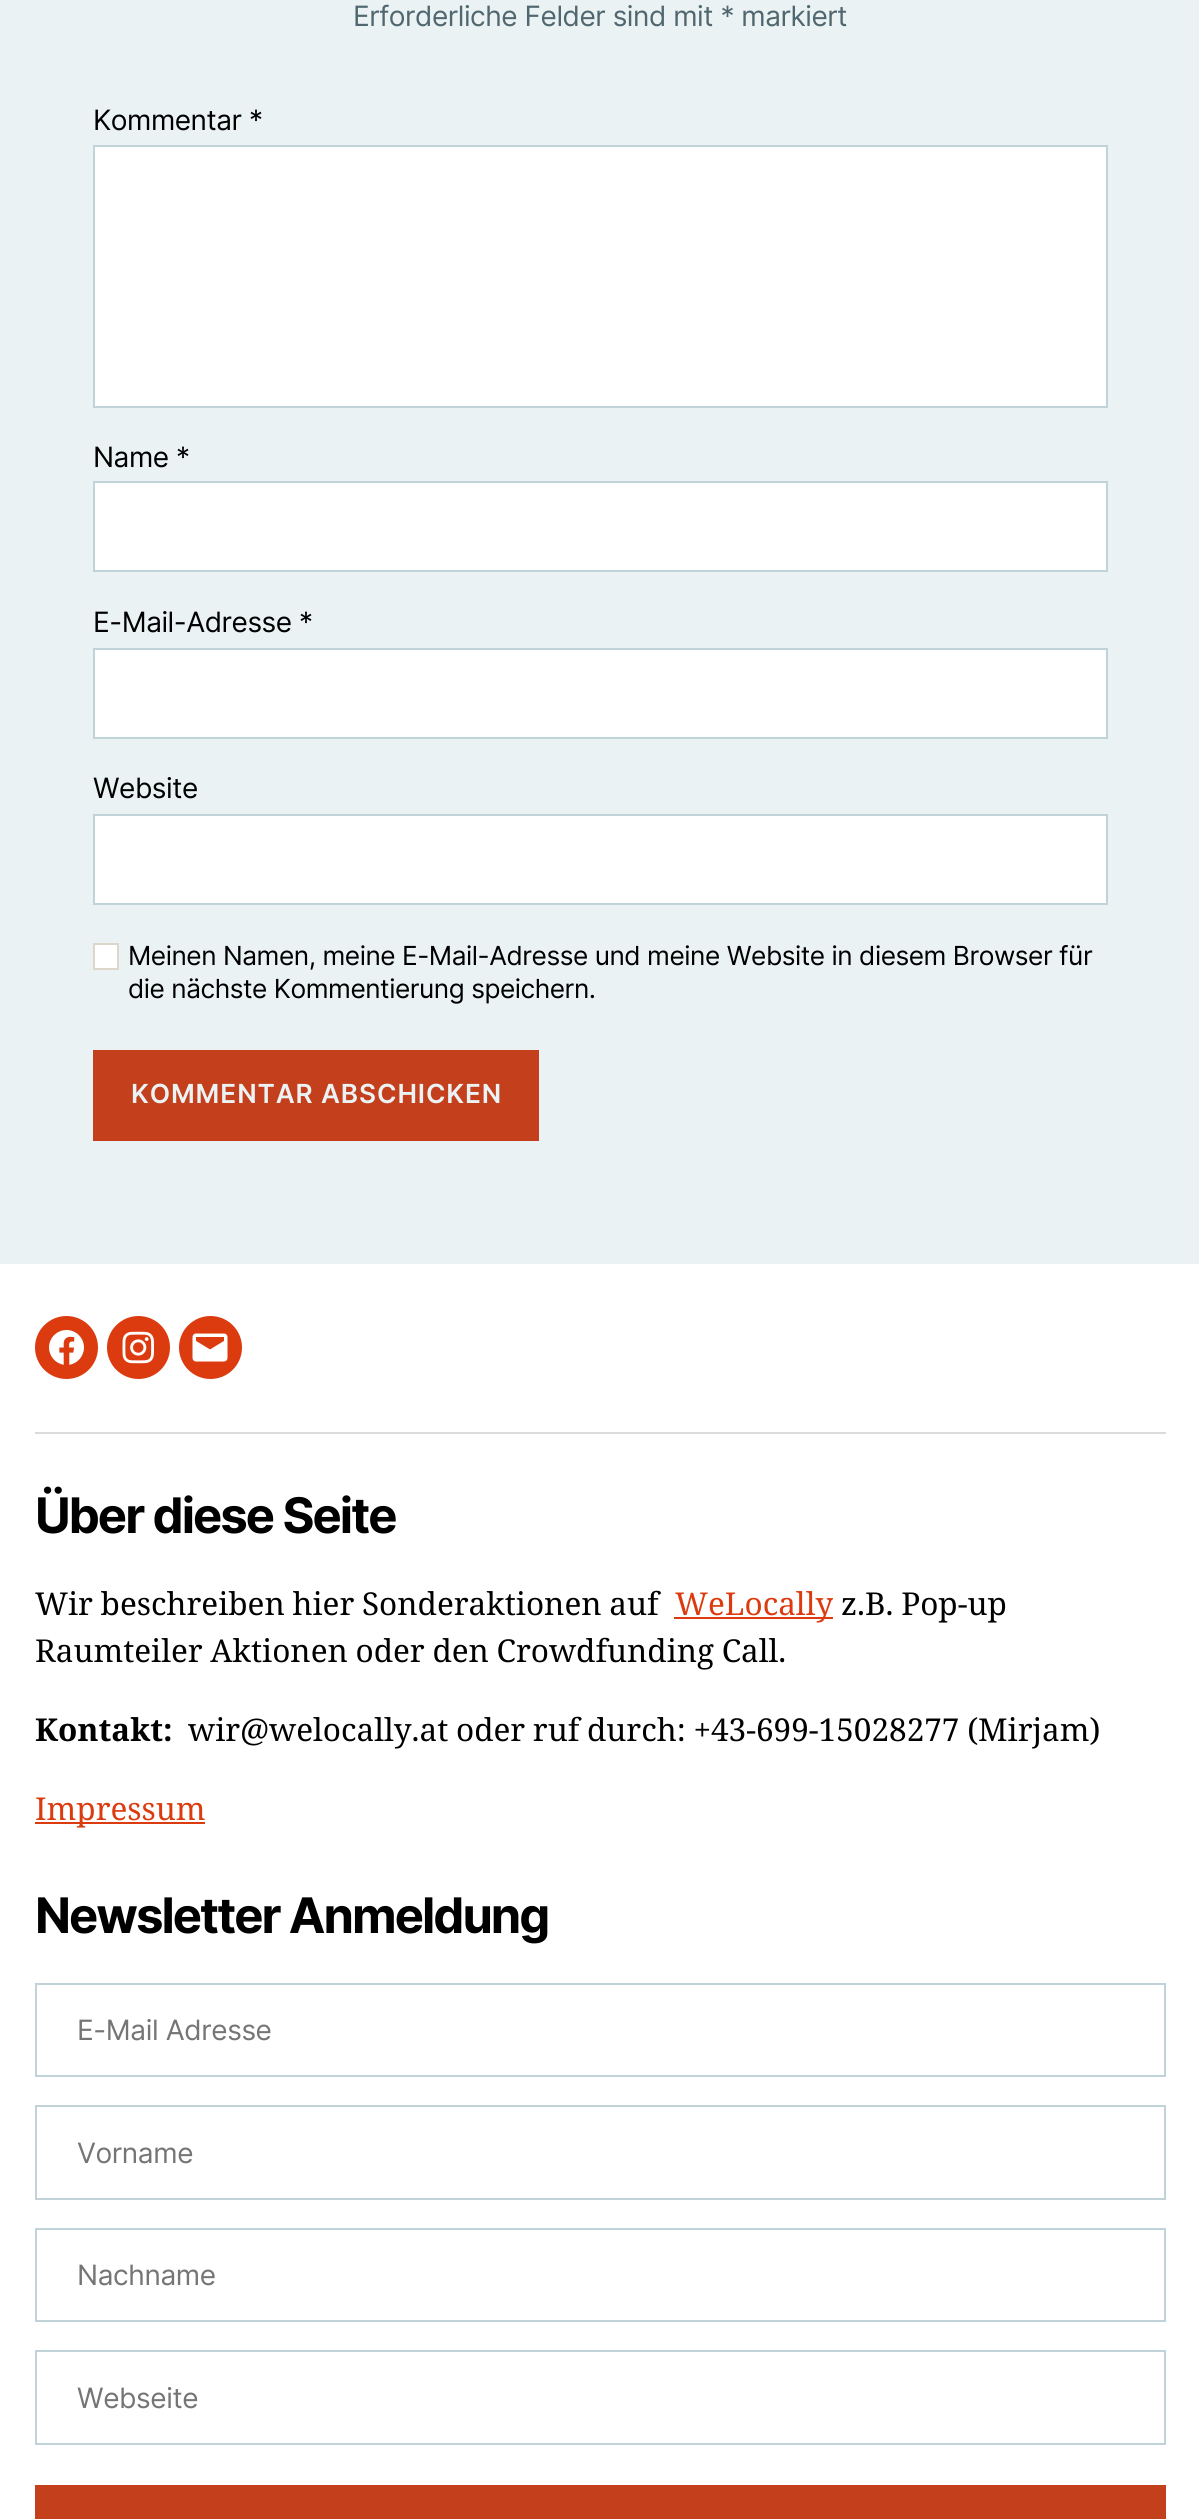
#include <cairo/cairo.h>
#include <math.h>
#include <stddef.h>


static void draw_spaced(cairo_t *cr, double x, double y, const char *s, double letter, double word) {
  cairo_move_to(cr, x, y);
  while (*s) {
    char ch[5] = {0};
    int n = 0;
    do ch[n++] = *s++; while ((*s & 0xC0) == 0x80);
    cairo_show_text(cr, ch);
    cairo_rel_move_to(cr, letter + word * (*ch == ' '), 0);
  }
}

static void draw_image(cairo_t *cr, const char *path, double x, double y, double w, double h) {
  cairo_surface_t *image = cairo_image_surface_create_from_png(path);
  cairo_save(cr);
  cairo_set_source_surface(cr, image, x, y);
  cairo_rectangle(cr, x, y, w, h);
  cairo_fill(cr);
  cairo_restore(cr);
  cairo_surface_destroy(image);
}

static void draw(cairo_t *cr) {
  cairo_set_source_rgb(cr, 234 / 255.0, 242 / 255.0, 244 / 255.0);
  cairo_paint(cr);
  cairo_set_source_rgb(cr, 1, 1, 1);
  cairo_rectangle(cr, 94, 146, 1013, 261);
  cairo_fill_preserve(cr);
  cairo_set_source_rgb(cr, 191 / 255.0, 211 / 255.0, 216 / 255.0);
  cairo_stroke(cr);
  cairo_set_source_rgb(cr, 1, 1, 1);
  cairo_rectangle(cr, 94, 482, 1013, 89);
  cairo_fill_preserve(cr);
  cairo_set_source_rgb(cr, 191 / 255.0, 211 / 255.0, 216 / 255.0);
  cairo_stroke(cr);
  cairo_set_source_rgb(cr, 1, 1, 1);
  cairo_rectangle(cr, 94, 649, 1013, 89);
  cairo_fill_preserve(cr);
  cairo_set_source_rgb(cr, 191 / 255.0, 211 / 255.0, 216 / 255.0);
  cairo_stroke(cr);
  cairo_set_source_rgb(cr, 1, 1, 1);
  cairo_rectangle(cr, 94, 815, 1013, 89);
  cairo_fill_preserve(cr);
  cairo_set_source_rgb(cr, 191 / 255.0, 211 / 255.0, 216 / 255.0);
  cairo_stroke(cr);
  cairo_set_source_rgb(cr, 1, 1, 1);
  cairo_rectangle(cr, 94, 944, 24, 25);
  cairo_fill_preserve(cr);
  cairo_set_source_rgb(cr, 220 / 255.0, 215 / 255.0, 202 / 255.0);
  cairo_stroke(cr);
  cairo_set_source_rgb(cr, 196 / 255.0, 64 / 255.0, 28 / 255.0);
  cairo_rectangle(cr, 93, 1050, 446, 91);
  cairo_fill(cr);
  cairo_set_source_rgb(cr, 1, 1, 1);
  cairo_rectangle(cr, 0, 1264, 1199, 1255);
  cairo_fill(cr);
  cairo_set_source_rgb(cr, 219 / 255.0, 219 / 255.0, 219 / 255.0);
  cairo_rectangle(cr, 35, 1432, 1131, 2);
  cairo_fill(cr);
  cairo_set_source_rgb(cr, 219 / 255.0, 59 / 255.0, 15 / 255.0);
  cairo_arc(cr, 66.5, 1347.5, 31.5, 0, 2 * M_PI);
  cairo_fill(cr);
  draw_image(cr, "images/1.png", 49, 1330, 35, 35);
  cairo_arc(cr, 138.5, 1347.5, 31.5, 0, 2 * M_PI);
  cairo_fill(cr);
  draw_image(cr, "images/2.png", 122, 1331, 32, 33);
  cairo_arc(cr, 210.5, 1347.5, 31.5, 0, 2 * M_PI);
  cairo_fill(cr);
  draw_image(cr, "images/3.png", 192, 1333, 36, 29);
  cairo_rectangle(cr, 674, 1617, 159, 2);
  cairo_fill(cr);
  cairo_rectangle(cr, 35, 1822, 170, 2);
  cairo_fill(cr);
  cairo_rectangle(cr, 36, 1984, 1129, 92);
  cairo_set_source_rgb(cr, 191 / 255.0, 211 / 255.0, 216 / 255.0);
  cairo_stroke(cr);
  cairo_rectangle(cr, 36, 2106, 1129, 93);
  cairo_stroke(cr);
  cairo_rectangle(cr, 36, 2229, 1129, 92);
  cairo_stroke(cr);
  cairo_rectangle(cr, 36, 2351, 1129, 93);
  cairo_stroke(cr);
  cairo_set_source_rgb(cr, 196 / 255.0, 64 / 255.0, 28 / 255.0);
  cairo_rectangle(cr, 35, 2485, 1131, 34);
  cairo_fill(cr);
  cairo_select_font_face(cr, "Inter", CAIRO_FONT_SLANT_NORMAL, CAIRO_FONT_WEIGHT_NORMAL);
  cairo_set_font_size(cr, 28);
  cairo_set_source_rgb(cr, 81 / 255.0, 103 / 255.0, 111 / 255.0);
  draw_spaced(cr, 353, 26, "Erforderliche Felder sind mit * markiert", -0.47, 0);
  cairo_set_source_rgb(cr, 0, 0, 0);
  draw_spaced(cr, 93, 130, "Kommentar *", -0.47, 0);
  draw_spaced(cr, 93, 467, "Name *", -0.47, 0);
  draw_spaced(cr, 93, 632, "E-Mail-Adresse *", -0.47, 0);
  draw_spaced(cr, 93, 798, "Website", -0.47, 0);
  cairo_set_font_size(cr, 26.25);
  draw_spaced(cr, 128, 965, "Meinen Namen, meine E-Mail-Adresse und meine Website in diesem Browser für", -0.47, 0);
  draw_spaced(cr, 128, 998, "die nächste Kommentierung speichern.", -0.47, 0);
  cairo_select_font_face(cr, "Inter SemiBold", CAIRO_FONT_SLANT_NORMAL, CAIRO_FONT_WEIGHT_NORMAL);
  cairo_set_source_rgb(cr, 234 / 255.0, 242 / 255.0, 244 / 255.0);
  draw_spaced(cr, 131, 1103, "KOMMENTAR ABSCHICKEN", 0.9, 0);
  cairo_select_font_face(cr, "Inter", CAIRO_FONT_SLANT_NORMAL, CAIRO_FONT_WEIGHT_BOLD);
  cairo_set_font_size(cr, 49);
  cairo_set_source_rgb(cr, 0, 0, 0);
  draw_spaced(cr, 35, 1533, "Über diese Seite", -2, 0);
  cairo_select_font_face(cr, "Noto Serif", CAIRO_FONT_SLANT_NORMAL, CAIRO_FONT_WEIGHT_NORMAL);
  cairo_set_font_size(cr, 31.5);
  draw_spaced(cr, 35, 1615, "Wir beschreiben hier Sonderaktionen auf", 0, -0.5);
  cairo_set_source_rgb(cr, 219 / 255.0, 59 / 255.0, 15 / 255.0);
  cairo_move_to(cr, 675, 1615);
  cairo_show_text(cr, "WeLocally");
  cairo_set_source_rgb(cr, 0, 0, 0);
  draw_spaced(cr, 841, 1615, "z.B. Pop-up", 0, -0.5);
  draw_spaced(cr, 35, 1662, "Raumteiler Aktionen oder den Crowdfunding Call.", 0, -0.5);
  cairo_select_font_face(cr, "Noto Serif", CAIRO_FONT_SLANT_NORMAL, CAIRO_FONT_WEIGHT_BOLD);
  cairo_move_to(cr, 35, 1741);
  cairo_show_text(cr, "Kontakt:");
  cairo_select_font_face(cr, "Noto Serif", CAIRO_FONT_SLANT_NORMAL, CAIRO_FONT_WEIGHT_NORMAL);
  draw_spaced(cr, 188, 1741, "wir@welocally.at oder ruf durch: +43-699-15028277 (Mirjam)", 0, -0.5);
  cairo_set_source_rgb(cr, 219 / 255.0, 59 / 255.0, 15 / 255.0);
  cairo_move_to(cr, 35, 1820);
  cairo_show_text(cr, "Impressum");
  cairo_select_font_face(cr, "Inter", CAIRO_FONT_SLANT_NORMAL, CAIRO_FONT_WEIGHT_BOLD);
  cairo_set_font_size(cr, 49);
  cairo_set_source_rgb(cr, 0, 0, 0);
  draw_spaced(cr, 35, 1933, "Newsletter Anmeldung", -2, 0);
  cairo_select_font_face(cr, "Inter", CAIRO_FONT_SLANT_NORMAL, CAIRO_FONT_WEIGHT_NORMAL);
  cairo_set_font_size(cr, 28);
  cairo_set_source_rgb(cr, 117 / 255.0, 117 / 255.0, 117 / 255.0);
  draw_spaced(cr, 77, 2040, "E-Mail Adresse", -0.4, 0);
  draw_spaced(cr, 77, 2163, "Vorname", -0.4, 0);
  draw_spaced(cr, 77, 2285, "Nachname", -0.4, 0);
  draw_spaced(cr, 77, 2408, "Webseite", -0.4, 0);
}

int main(void) {
  cairo_surface_t *surface = cairo_image_surface_create(CAIRO_FORMAT_RGB24, 1199, 2519);
  cairo_t *cr = cairo_create(surface);
  cairo_font_options_t *options = cairo_font_options_create();
  cairo_font_options_set_hint_metrics(options, CAIRO_HINT_METRICS_OFF);
  cairo_font_options_set_hint_style(options, CAIRO_HINT_STYLE_NONE);
  cairo_set_font_options(cr, options);
  cairo_set_miter_limit(cr, 4);
  draw(cr);
  cairo_surface_write_to_png(surface, "out.png");
  cairo_font_options_destroy(options);
  cairo_destroy(cr);
  cairo_surface_destroy(surface);
  return 0;
}
